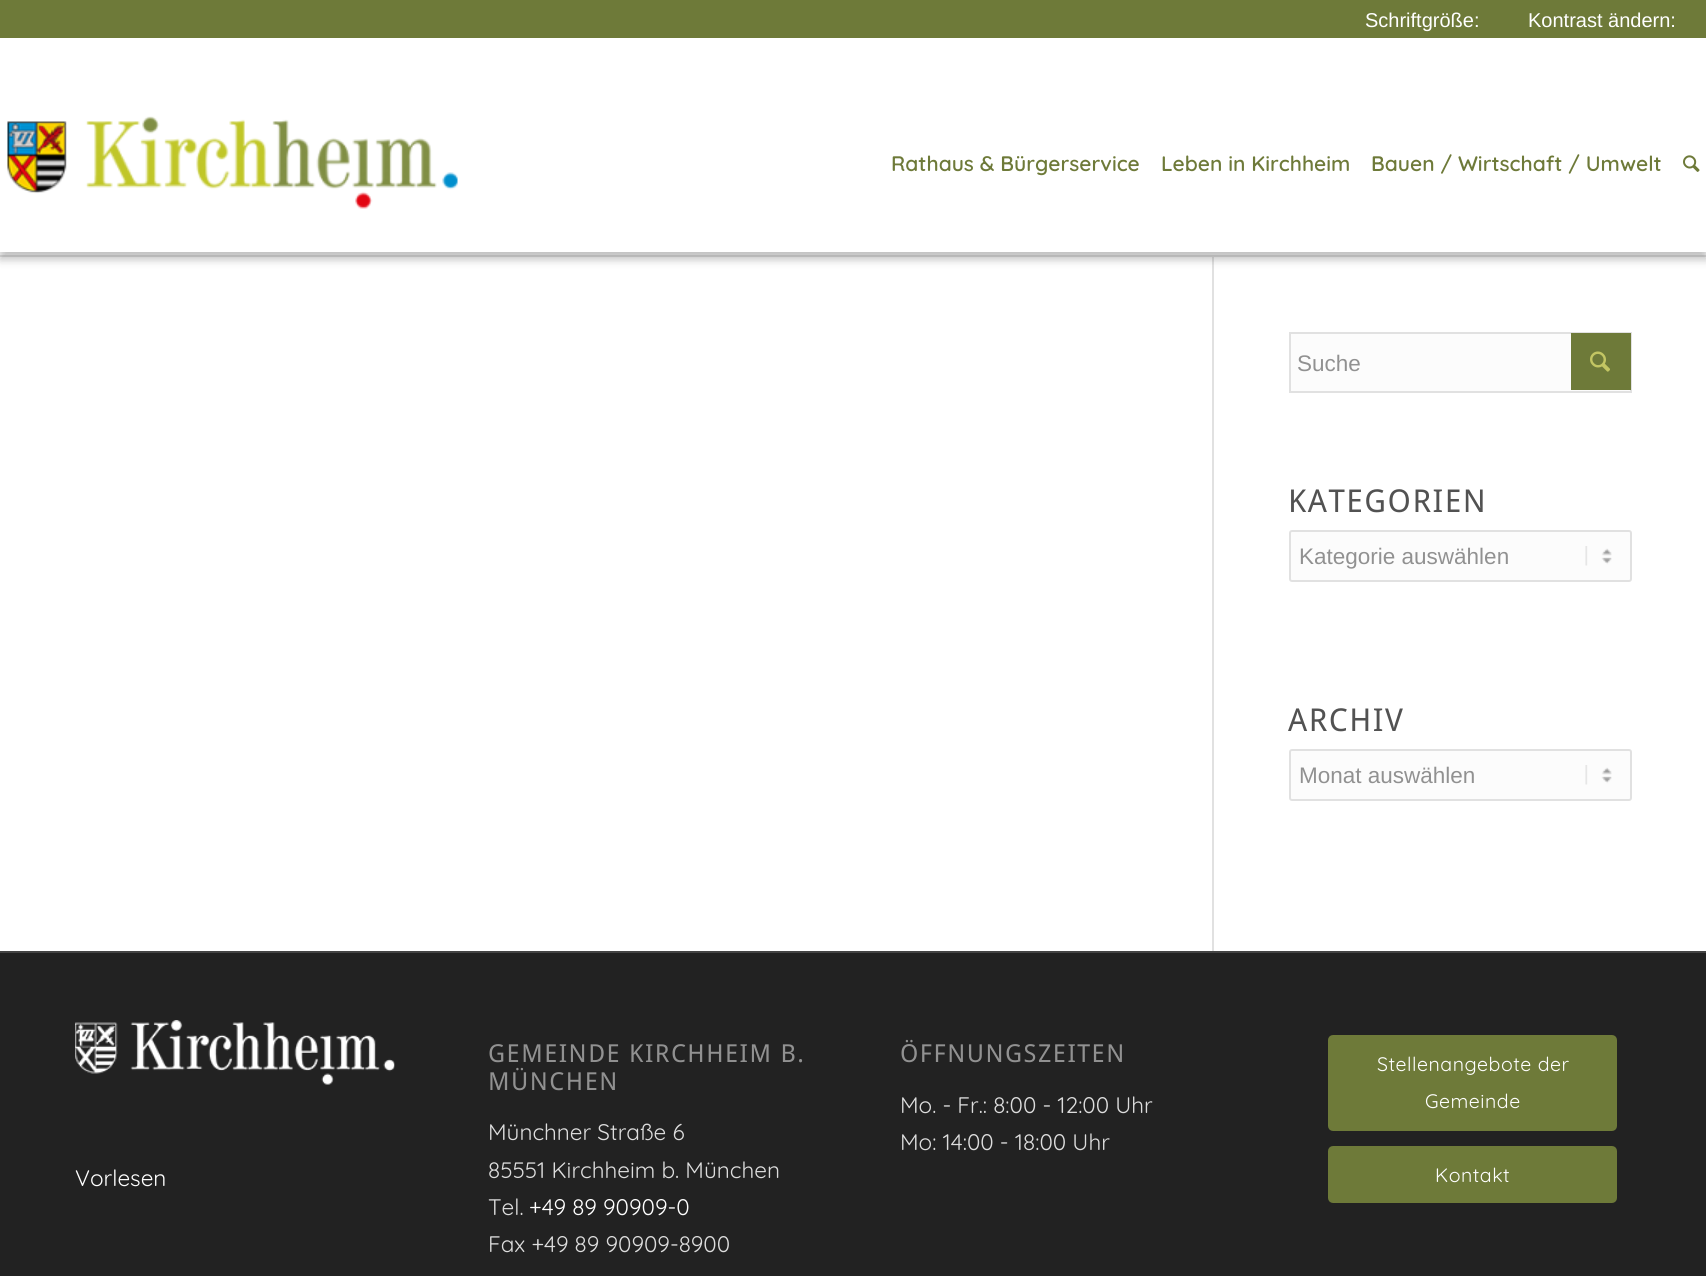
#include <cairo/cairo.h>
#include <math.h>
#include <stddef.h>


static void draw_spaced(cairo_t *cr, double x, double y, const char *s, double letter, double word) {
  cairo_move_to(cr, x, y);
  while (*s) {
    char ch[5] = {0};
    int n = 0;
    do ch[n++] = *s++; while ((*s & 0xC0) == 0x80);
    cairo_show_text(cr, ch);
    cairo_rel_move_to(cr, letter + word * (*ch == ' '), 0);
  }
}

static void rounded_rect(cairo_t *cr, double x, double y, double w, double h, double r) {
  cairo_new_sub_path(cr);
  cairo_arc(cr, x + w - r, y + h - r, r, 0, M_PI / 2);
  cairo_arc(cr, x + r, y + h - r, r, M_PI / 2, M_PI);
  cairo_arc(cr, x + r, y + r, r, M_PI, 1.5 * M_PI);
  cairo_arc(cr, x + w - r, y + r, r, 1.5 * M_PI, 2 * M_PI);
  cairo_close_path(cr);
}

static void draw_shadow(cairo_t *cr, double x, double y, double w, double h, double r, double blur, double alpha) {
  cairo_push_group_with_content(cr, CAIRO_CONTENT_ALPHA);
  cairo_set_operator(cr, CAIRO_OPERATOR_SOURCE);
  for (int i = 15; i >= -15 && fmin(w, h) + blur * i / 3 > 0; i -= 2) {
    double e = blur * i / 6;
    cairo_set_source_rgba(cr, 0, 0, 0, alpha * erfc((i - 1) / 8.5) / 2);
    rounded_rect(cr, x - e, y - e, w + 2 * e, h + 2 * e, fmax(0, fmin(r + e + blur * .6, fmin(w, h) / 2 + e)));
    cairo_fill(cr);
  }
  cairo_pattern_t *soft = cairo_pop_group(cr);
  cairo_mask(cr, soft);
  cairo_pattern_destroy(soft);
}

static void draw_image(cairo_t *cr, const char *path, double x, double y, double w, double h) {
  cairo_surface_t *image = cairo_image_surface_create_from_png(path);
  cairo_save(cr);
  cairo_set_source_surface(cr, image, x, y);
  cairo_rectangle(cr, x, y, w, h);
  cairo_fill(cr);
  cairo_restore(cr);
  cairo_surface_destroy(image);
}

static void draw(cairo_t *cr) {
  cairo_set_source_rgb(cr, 1, 1, 1);
  cairo_paint(cr);
  cairo_set_source_rgb(cr, 252 / 255.0, 252 / 255.0, 252 / 255.0);
  cairo_rectangle(cr, 0, 252, 1706, 3);
  cairo_fill(cr);
  cairo_set_source_rgb(cr, 225 / 255.0, 225 / 255.0, 225 / 255.0);
  cairo_rectangle(cr, 0, 255, 1706, 2);
  cairo_fill(cr);
  cairo_rectangle(cr, 1212, 257, 2, 694);
  cairo_fill(cr);
  cairo_set_source_rgb(cr, 26 / 255.0, 26 / 255.0, 26 / 255.0);
  draw_shadow(cr, 0, 8, 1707, 252, 0, 4, 0.25);
  cairo_set_source_rgb(cr, 110 / 255.0, 122 / 255.0, 57 / 255.0);
  cairo_rectangle(cr, 0, 0, 1706, 38);
  cairo_fill(cr);
  cairo_set_source_rgb(cr, 1, 1, 1);
  cairo_rectangle(cr, 0, 38, 1706, 214);
  cairo_fill(cr);
  draw_image(cr, "images/1.png", 7, 116, 451, 93);
  draw_image(cr, "images/2.png", 1683, 155, 17, 17);
  cairo_set_source_rgb(cr, 252 / 255.0, 252 / 255.0, 252 / 255.0);
  cairo_rectangle(cr, 1290, 333, 341, 59);
  cairo_fill_preserve(cr);
  cairo_set_source_rgb(cr, 225 / 255.0, 225 / 255.0, 225 / 255.0);
  cairo_stroke(cr);
  cairo_set_source_rgb(cr, 110 / 255.0, 122 / 255.0, 57 / 255.0);
  cairo_rectangle(cr, 1571, 333, 60, 57);
  cairo_fill(cr);
  draw_image(cr, "images/3.png", 1590, 351, 20, 21);
  cairo_set_source_rgb(cr, 252 / 255.0, 252 / 255.0, 252 / 255.0);
  rounded_rect(cr, 1289, 530, 343, 52, 3);
  cairo_fill(cr);
  draw_image(cr, "images/4.png", 1585, 546, 27, 20);
  rounded_rect(cr, 1290, 531, 341, 50, 2);
  cairo_set_source_rgb(cr, 225 / 255.0, 225 / 255.0, 225 / 255.0);
  cairo_stroke(cr);
  cairo_set_source_rgb(cr, 252 / 255.0, 252 / 255.0, 252 / 255.0);
  rounded_rect(cr, 1289, 749, 343, 52, 3);
  cairo_fill(cr);
  draw_image(cr, "images/4.png", 1585, 765, 27, 20);
  rounded_rect(cr, 1290, 750, 341, 50, 2);
  cairo_set_source_rgb(cr, 225 / 255.0, 225 / 255.0, 225 / 255.0);
  cairo_stroke(cr);
  cairo_set_source_rgb(cr, 34 / 255.0, 34 / 255.0, 34 / 255.0);
  cairo_rectangle(cr, 0, 953, 1706, 323);
  cairo_fill(cr);
  cairo_set_source_rgb(cr, 68 / 255.0, 68 / 255.0, 68 / 255.0);
  cairo_rectangle(cr, 0, 951, 1706, 2);
  cairo_fill(cr);
  draw_image(cr, "images/5.png", 75, 1020, 320, 65);
  cairo_set_source_rgb(cr, 110 / 255.0, 122 / 255.0, 57 / 255.0);
  rounded_rect(cr, 1329.5, 1036.5, 286, 93, 3.5);
  cairo_fill_preserve(cr);
  cairo_set_line_width(cr, 3);
  cairo_stroke(cr);
  rounded_rect(cr, 1329.5, 1147.5, 286, 54, 3.5);
  cairo_fill_preserve(cr);
  cairo_stroke(cr);
  cairo_select_font_face(cr, "Liberation Sans", CAIRO_FONT_SLANT_NORMAL, CAIRO_FONT_WEIGHT_NORMAL);
  cairo_set_font_size(cr, 20);
  cairo_set_source_rgb(cr, 1, 1, 1);
  cairo_move_to(cr, 1365, 27);
  cairo_show_text(cr, "Schriftgröße:");
  cairo_move_to(cr, 1528, 27);
  cairo_show_text(cr, "Kontrast ändern:");
  cairo_select_font_face(cr, "Quicksand SemiBold", CAIRO_FONT_SLANT_NORMAL, CAIRO_FONT_WEIGHT_NORMAL);
  cairo_set_font_size(cr, 21);
  cairo_set_source_rgb(cr, 110 / 255.0, 122 / 255.0, 57 / 255.0);
  cairo_move_to(cr, 891, 171);
  cairo_show_text(cr, "Rathaus & Bürgerservice");
  cairo_move_to(cr, 1161, 171);
  cairo_show_text(cr, "Leben in Kirchheim");
  cairo_move_to(cr, 1371, 171);
  cairo_show_text(cr, "Bauen / Wirtschaft / Umwelt");
  cairo_select_font_face(cr, "Liberation Sans", CAIRO_FONT_SLANT_NORMAL, CAIRO_FONT_WEIGHT_NORMAL);
  cairo_set_font_size(cr, 22.5);
  cairo_set_source_rgb(cr, 145 / 255.0, 145 / 255.0, 145 / 255.0);
  cairo_move_to(cr, 1297, 371);
  cairo_show_text(cr, "Suche");
  cairo_select_font_face(cr, "Droid Sans", CAIRO_FONT_SLANT_NORMAL, CAIRO_FONT_WEIGHT_NORMAL);
  cairo_set_font_size(cr, 31.5);
  cairo_set_source_rgb(cr, 82 / 255.0, 82 / 255.0, 82 / 255.0);
  draw_spaced(cr, 1288, 512, "KATEGORIEN", 1.5, 0);
  cairo_select_font_face(cr, "Liberation Sans", CAIRO_FONT_SLANT_NORMAL, CAIRO_FONT_WEIGHT_NORMAL);
  cairo_set_font_size(cr, 22.5);
  cairo_set_source_rgb(cr, 145 / 255.0, 145 / 255.0, 145 / 255.0);
  cairo_move_to(cr, 1299, 564);
  cairo_show_text(cr, "Kategorie auswählen");
  cairo_select_font_face(cr, "Droid Sans", CAIRO_FONT_SLANT_NORMAL, CAIRO_FONT_WEIGHT_NORMAL);
  cairo_set_font_size(cr, 31.5);
  cairo_set_source_rgb(cr, 82 / 255.0, 82 / 255.0, 82 / 255.0);
  draw_spaced(cr, 1288, 731, "ARCHIV", 1.5, 0);
  cairo_select_font_face(cr, "Liberation Sans", CAIRO_FONT_SLANT_NORMAL, CAIRO_FONT_WEIGHT_NORMAL);
  cairo_set_font_size(cr, 22.5);
  cairo_set_source_rgb(cr, 145 / 255.0, 145 / 255.0, 145 / 255.0);
  cairo_move_to(cr, 1299, 783);
  cairo_show_text(cr, "Monat auswählen");
  cairo_select_font_face(cr, "Quicksand", CAIRO_FONT_SLANT_NORMAL, CAIRO_FONT_WEIGHT_NORMAL);
  cairo_set_source_rgb(cr, 1, 1, 1);
  cairo_move_to(cr, 75, 1186);
  cairo_show_text(cr, "Vorlesen");
  cairo_select_font_face(cr, "Droid Sans", CAIRO_FONT_SLANT_NORMAL, CAIRO_FONT_WEIGHT_NORMAL);
  cairo_set_font_size(cr, 24.75);
  cairo_set_source_rgb(cr, 145 / 255.0, 145 / 255.0, 145 / 255.0);
  draw_spaced(cr, 488, 1062, "GEMEINDE KIRCHHEIM B.", 1.5, 0);
  draw_spaced(cr, 488, 1090, "MÜNCHEN", 1.5, 0);
  cairo_select_font_face(cr, "Quicksand", CAIRO_FONT_SLANT_NORMAL, CAIRO_FONT_WEIGHT_NORMAL);
  cairo_set_font_size(cr, 22.5);
  cairo_set_source_rgb(cr, 221 / 255.0, 221 / 255.0, 221 / 255.0);
  cairo_move_to(cr, 488, 1140);
  cairo_show_text(cr, "Münchner Straße 6");
  cairo_move_to(cr, 488, 1178);
  cairo_show_text(cr, "85551 Kirchheim b. München");
  cairo_move_to(cr, 488, 1215);
  cairo_show_text(cr, "Tel.");
  cairo_set_source_rgb(cr, 1, 1, 1);
  cairo_move_to(cr, 529, 1215);
  cairo_show_text(cr, "+49 89 90909-0");
  cairo_set_source_rgb(cr, 221 / 255.0, 221 / 255.0, 221 / 255.0);
  cairo_move_to(cr, 488, 1252);
  cairo_show_text(cr, "Fax +49 89 90909-8900");
  cairo_select_font_face(cr, "Droid Sans", CAIRO_FONT_SLANT_NORMAL, CAIRO_FONT_WEIGHT_NORMAL);
  cairo_set_font_size(cr, 24.75);
  cairo_set_source_rgb(cr, 145 / 255.0, 145 / 255.0, 145 / 255.0);
  draw_spaced(cr, 900, 1062, "ÖFFNUNGSZEITEN", 1.5, 0);
  cairo_select_font_face(cr, "Quicksand", CAIRO_FONT_SLANT_NORMAL, CAIRO_FONT_WEIGHT_NORMAL);
  cairo_set_font_size(cr, 22.5);
  cairo_set_source_rgb(cr, 221 / 255.0, 221 / 255.0, 221 / 255.0);
  cairo_move_to(cr, 900, 1113);
  cairo_show_text(cr, "Mo. - Fr.: 8:00 - 12:00 Uhr");
  cairo_move_to(cr, 900, 1150);
  cairo_show_text(cr, "Mo: 14:00 - 18:00 Uhr");
  cairo_set_font_size(cr, 19.5);
  cairo_set_source_rgb(cr, 1, 1, 1);
  draw_spaced(cr, 1377, 1071, "Stellenangebote der", 0.5, 0);
  draw_spaced(cr, 1425, 1108, "Gemeinde", 0.5, 0);
  draw_spaced(cr, 1435, 1182, "Kontakt", 0.5, 0);
}

int main(void) {
  cairo_surface_t *surface = cairo_image_surface_create(CAIRO_FORMAT_RGB24, 1706, 1276);
  cairo_t *cr = cairo_create(surface);
  cairo_font_options_t *options = cairo_font_options_create();
  cairo_font_options_set_hint_metrics(options, CAIRO_HINT_METRICS_OFF);
  cairo_font_options_set_hint_style(options, CAIRO_HINT_STYLE_NONE);
  cairo_set_font_options(cr, options);
  cairo_set_miter_limit(cr, 4);
  draw(cr);
  cairo_surface_write_to_png(surface, "out.png");
  cairo_font_options_destroy(options);
  cairo_destroy(cr);
  cairo_surface_destroy(surface);
  return 0;
}
